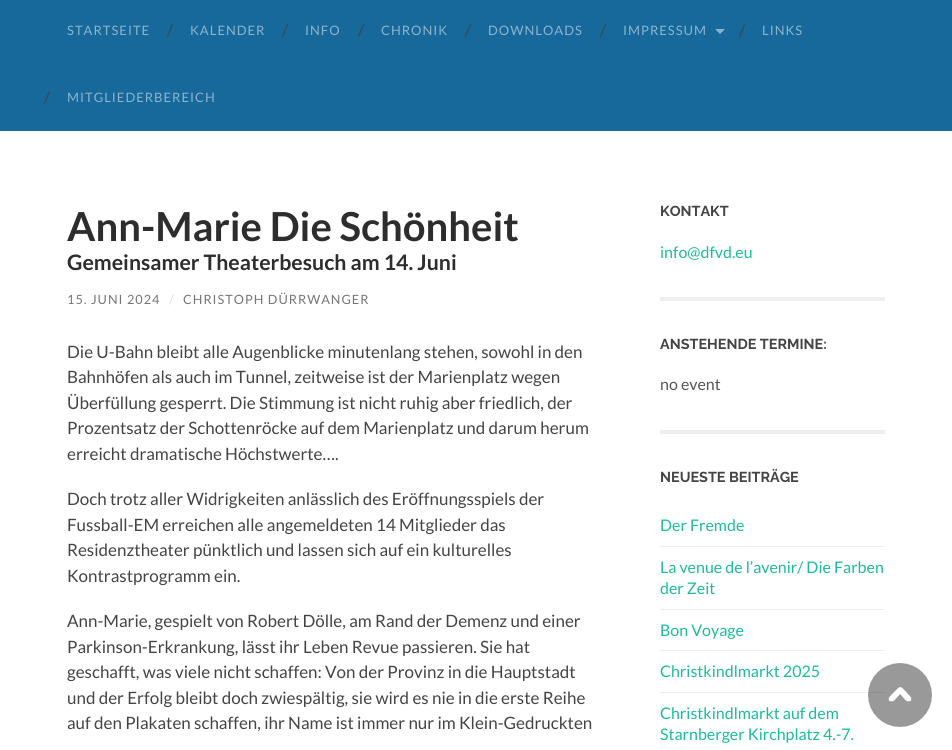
#include <cairo/cairo.h>
#include <math.h>
#include <stddef.h>


static void draw_spaced(cairo_t *cr, double x, double y, const char *s, double letter, double word) {
  cairo_move_to(cr, x, y);
  while (*s) {
    char ch[5] = {0};
    int n = 0;
    do ch[n++] = *s++; while ((*s & 0xC0) == 0x80);
    cairo_show_text(cr, ch);
    cairo_rel_move_to(cr, letter + word * (*ch == ' '), 0);
  }
}

static void draw_image(cairo_t *cr, const char *path, double x, double y, double w, double h) {
  cairo_surface_t *image = cairo_image_surface_create_from_png(path);
  cairo_save(cr);
  cairo_set_source_surface(cr, image, x, y);
  cairo_rectangle(cr, x, y, w, h);
  cairo_fill(cr);
  cairo_restore(cr);
  cairo_surface_destroy(image);
}

static void draw(cairo_t *cr) {
  cairo_set_source_rgb(cr, 1, 1, 1);
  cairo_paint(cr);
  cairo_set_source_rgb(cr, 23 / 255.0, 104 / 255.0, 155 / 255.0);
  cairo_rectangle(cr, 0, 0, 952, 131);
  cairo_fill(cr);
  cairo_set_source_rgb(cr, 139 / 255.0, 180 / 255.0, 205 / 255.0);
  cairo_new_path(cr);
  cairo_move_to(cr, 715, 29);
  cairo_line_to(cr, 725, 29);
  cairo_line_to(cr, 720, 34);
  cairo_close_path(cr);
  cairo_fill(cr);
  cairo_set_source_rgb(cr, 238 / 255.0, 238 / 255.0, 238 / 255.0);
  cairo_rectangle(cr, 660, 297, 225, 4);
  cairo_fill(cr);
  cairo_rectangle(cr, 660, 430, 225, 4);
  cairo_fill(cr);
  cairo_rectangle(cr, 660, 546, 225, 1);
  cairo_fill(cr);
  cairo_rectangle(cr, 660, 609, 225, 1);
  cairo_fill(cr);
  cairo_rectangle(cr, 660, 650, 225, 1);
  cairo_fill(cr);
  cairo_rectangle(cr, 660, 692, 225, 1);
  cairo_fill(cr);
  draw_image(cr, "images/1.png", 868, 663, 64, 64);
  cairo_select_font_face(cr, "Lato", CAIRO_FONT_SLANT_NORMAL, CAIRO_FONT_WEIGHT_NORMAL);
  cairo_set_font_size(cr, 13);
  cairo_set_source_rgb(cr, 139 / 255.0, 180 / 255.0, 205 / 255.0);
  draw_spaced(cr, 67, 35, "STARTSEITE", 1, 0);
  cairo_set_font_size(cr, 16);
  cairo_set_source_rgb(cr, 68 / 255.0, 68 / 255.0, 68 / 255.0);
  cairo_move_to(cr, 167, 36);
  cairo_show_text(cr, "/");
  cairo_set_font_size(cr, 13);
  cairo_set_source_rgb(cr, 139 / 255.0, 180 / 255.0, 205 / 255.0);
  draw_spaced(cr, 190, 35, "KALENDER", 1, 0);
  cairo_set_font_size(cr, 16);
  cairo_set_source_rgb(cr, 68 / 255.0, 68 / 255.0, 68 / 255.0);
  cairo_move_to(cr, 282, 36);
  cairo_show_text(cr, "/");
  cairo_set_font_size(cr, 13);
  cairo_set_source_rgb(cr, 139 / 255.0, 180 / 255.0, 205 / 255.0);
  draw_spaced(cr, 305, 35, "INFO", 1, 0);
  cairo_set_font_size(cr, 16);
  cairo_set_source_rgb(cr, 68 / 255.0, 68 / 255.0, 68 / 255.0);
  cairo_move_to(cr, 358, 36);
  cairo_show_text(cr, "/");
  cairo_set_font_size(cr, 13);
  cairo_set_source_rgb(cr, 139 / 255.0, 180 / 255.0, 205 / 255.0);
  draw_spaced(cr, 381, 35, "CHRONIK", 1, 0);
  cairo_set_font_size(cr, 16);
  cairo_set_source_rgb(cr, 68 / 255.0, 68 / 255.0, 68 / 255.0);
  cairo_move_to(cr, 465, 36);
  cairo_show_text(cr, "/");
  cairo_set_font_size(cr, 13);
  cairo_set_source_rgb(cr, 139 / 255.0, 180 / 255.0, 205 / 255.0);
  draw_spaced(cr, 488, 35, "DOWNLOADS", 1, 0);
  cairo_set_font_size(cr, 16);
  cairo_set_source_rgb(cr, 68 / 255.0, 68 / 255.0, 68 / 255.0);
  cairo_move_to(cr, 600, 36);
  cairo_show_text(cr, "/");
  cairo_set_font_size(cr, 13);
  cairo_set_source_rgb(cr, 139 / 255.0, 180 / 255.0, 205 / 255.0);
  draw_spaced(cr, 623, 35, "IMPRESSUM", 1, 0);
  cairo_set_font_size(cr, 16);
  cairo_set_source_rgb(cr, 68 / 255.0, 68 / 255.0, 68 / 255.0);
  cairo_move_to(cr, 739, 36);
  cairo_show_text(cr, "/");
  cairo_set_font_size(cr, 13);
  cairo_set_source_rgb(cr, 139 / 255.0, 180 / 255.0, 205 / 255.0);
  draw_spaced(cr, 762, 35, "LINKS", 1, 0);
  cairo_set_font_size(cr, 16);
  cairo_set_source_rgb(cr, 68 / 255.0, 68 / 255.0, 68 / 255.0);
  cairo_move_to(cr, 44, 103);
  cairo_show_text(cr, "/");
  cairo_set_font_size(cr, 13);
  cairo_set_source_rgb(cr, 139 / 255.0, 180 / 255.0, 205 / 255.0);
  draw_spaced(cr, 67, 102, "MITGLIEDERBEREICH", 1, 0);
  cairo_select_font_face(cr, "Lato", CAIRO_FONT_SLANT_NORMAL, CAIRO_FONT_WEIGHT_BOLD);
  cairo_set_font_size(cr, 40);
  cairo_set_source_rgb(cr, 45 / 255.0, 45 / 255.0, 45 / 255.0);
  cairo_move_to(cr, 67, 241);
  cairo_show_text(cr, "Ann-Marie Die Schönheit");
  cairo_set_font_size(cr, 21.3);
  cairo_move_to(cr, 67, 270);
  cairo_show_text(cr, "Gemeinsamer Theaterbesuch am 14. Juni");
  cairo_select_font_face(cr, "Lato", CAIRO_FONT_SLANT_NORMAL, CAIRO_FONT_WEIGHT_NORMAL);
  cairo_set_font_size(cr, 12.75);
  cairo_set_source_rgb(cr, 118 / 255.0, 118 / 255.0, 118 / 255.0);
  draw_spaced(cr, 67, 304, "15. JUNI 2024", 1, 0);
  cairo_set_source_rgb(cr, 221 / 255.0, 221 / 255.0, 221 / 255.0);
  draw_spaced(cr, 169, 304, "/", 1, 0);
  cairo_set_source_rgb(cr, 118 / 255.0, 118 / 255.0, 118 / 255.0);
  draw_spaced(cr, 183, 304, "CHRISTOPH DÜRRWANGER", 1, 0);
  cairo_set_font_size(cr, 17);
  cairo_set_source_rgb(cr, 68 / 255.0, 68 / 255.0, 68 / 255.0);
  cairo_move_to(cr, 67, 358);
  cairo_show_text(cr, "Die U-Bahn bleibt alle Augenblicke minutenlang stehen, sowohl in den");
  cairo_move_to(cr, 67, 383);
  cairo_show_text(cr, "Bahnhöfen als auch im Tunnel, zeitweise ist der Marienplatz wegen");
  cairo_move_to(cr, 67, 409);
  cairo_show_text(cr, "Überfüllung gesperrt. Die Stimmung ist nicht ruhig aber friedlich, der");
  cairo_move_to(cr, 67, 434);
  cairo_show_text(cr, "Prozentsatz der Schottenröcke auf dem Marienplatz und darum herum");
  cairo_move_to(cr, 67, 460);
  cairo_show_text(cr, "erreicht dramatische Höchstwerte….");
  cairo_move_to(cr, 67, 505);
  cairo_show_text(cr, "Doch trotz aller Widrigkeiten anlässlich des Eröffnungsspiels der");
  cairo_move_to(cr, 67, 531);
  cairo_show_text(cr, "Fussball-EM erreichen alle angemeldeten 14 Mitglieder das");
  cairo_move_to(cr, 67, 556);
  cairo_show_text(cr, "Residenztheater pünktlich und lassen sich auf ein kulturelles");
  cairo_move_to(cr, 67, 582);
  cairo_show_text(cr, "Kontrastprogramm ein.");
  cairo_move_to(cr, 67, 627);
  cairo_show_text(cr, "Ann-Marie, gespielt von Robert Dölle, am Rand der Demenz und einer");
  cairo_move_to(cr, 67, 653);
  cairo_show_text(cr, "Parkinson-Erkrankung, lässt ihr Leben Revue passieren. Sie hat");
  cairo_move_to(cr, 67, 678);
  cairo_show_text(cr, "geschafft, was viele nicht schaffen: Von der Provinz in die Hauptstadt");
  cairo_move_to(cr, 67, 704);
  cairo_show_text(cr, "und der Erfolg bleibt doch zwiespältig, sie wird es nie in die erste Reihe");
  cairo_move_to(cr, 67, 729);
  cairo_show_text(cr, "auf den Plakaten schaffen, ihr Name ist immer nur im Klein-Gedruckten");
  cairo_select_font_face(cr, "Raleway Thin", CAIRO_FONT_SLANT_NORMAL, CAIRO_FONT_WEIGHT_NORMAL);
  cairo_set_font_size(cr, 14.4);
  cairo_move_to(cr, 660, 216);
  cairo_show_text(cr, "KONTAKT");
  cairo_select_font_face(cr, "Lato", CAIRO_FONT_SLANT_NORMAL, CAIRO_FONT_WEIGHT_NORMAL);
  cairo_set_font_size(cr, 16);
  cairo_set_source_rgb(cr, 26 / 255.0, 188 / 255.0, 156 / 255.0);
  cairo_move_to(cr, 660, 258);
  cairo_show_text(cr, "info@dfvd.eu");
  cairo_select_font_face(cr, "Raleway Thin", CAIRO_FONT_SLANT_NORMAL, CAIRO_FONT_WEIGHT_NORMAL);
  cairo_set_font_size(cr, 14.4);
  cairo_set_source_rgb(cr, 68 / 255.0, 68 / 255.0, 68 / 255.0);
  cairo_move_to(cr, 660, 349);
  cairo_show_text(cr, "ANSTEHENDE TERMINE:");
  cairo_select_font_face(cr, "Lato", CAIRO_FONT_SLANT_NORMAL, CAIRO_FONT_WEIGHT_NORMAL);
  cairo_set_font_size(cr, 16);
  cairo_set_source_rgb(cr, 85 / 255.0, 85 / 255.0, 85 / 255.0);
  cairo_move_to(cr, 660, 390);
  cairo_show_text(cr, "no event");
  cairo_select_font_face(cr, "Raleway Thin", CAIRO_FONT_SLANT_NORMAL, CAIRO_FONT_WEIGHT_NORMAL);
  cairo_set_font_size(cr, 14.4);
  cairo_set_source_rgb(cr, 68 / 255.0, 68 / 255.0, 68 / 255.0);
  cairo_move_to(cr, 660, 482);
  cairo_show_text(cr, "NEUESTE BEITRÄGE");
  cairo_select_font_face(cr, "Lato", CAIRO_FONT_SLANT_NORMAL, CAIRO_FONT_WEIGHT_NORMAL);
  cairo_set_font_size(cr, 16);
  cairo_set_source_rgb(cr, 26 / 255.0, 188 / 255.0, 156 / 255.0);
  cairo_move_to(cr, 660, 531);
  cairo_show_text(cr, "Der Fremde");
  cairo_move_to(cr, 660, 573);
  cairo_show_text(cr, "La venue de l’avenir/ Die Farben");
  cairo_move_to(cr, 660, 594);
  cairo_show_text(cr, "der Zeit");
  cairo_move_to(cr, 660, 636);
  cairo_show_text(cr, "Bon Voyage");
  cairo_move_to(cr, 660, 677);
  cairo_show_text(cr, "Christkindlmarkt 2025");
  cairo_move_to(cr, 660, 719);
  cairo_show_text(cr, "Christkindlmarkt auf dem");
  cairo_move_to(cr, 660, 740);
  cairo_show_text(cr, "Starnberger Kirchplatz 4.-7.");
}

int main(void) {
  cairo_surface_t *surface = cairo_image_surface_create(CAIRO_FORMAT_RGB24, 952, 750);
  cairo_t *cr = cairo_create(surface);
  cairo_font_options_t *options = cairo_font_options_create();
  cairo_font_options_set_hint_metrics(options, CAIRO_HINT_METRICS_OFF);
  cairo_font_options_set_hint_style(options, CAIRO_HINT_STYLE_NONE);
  cairo_set_font_options(cr, options);
  cairo_set_miter_limit(cr, 4);
  draw(cr);
  cairo_surface_write_to_png(surface, "out.png");
  cairo_font_options_destroy(options);
  cairo_destroy(cr);
  cairo_surface_destroy(surface);
  return 0;
}
